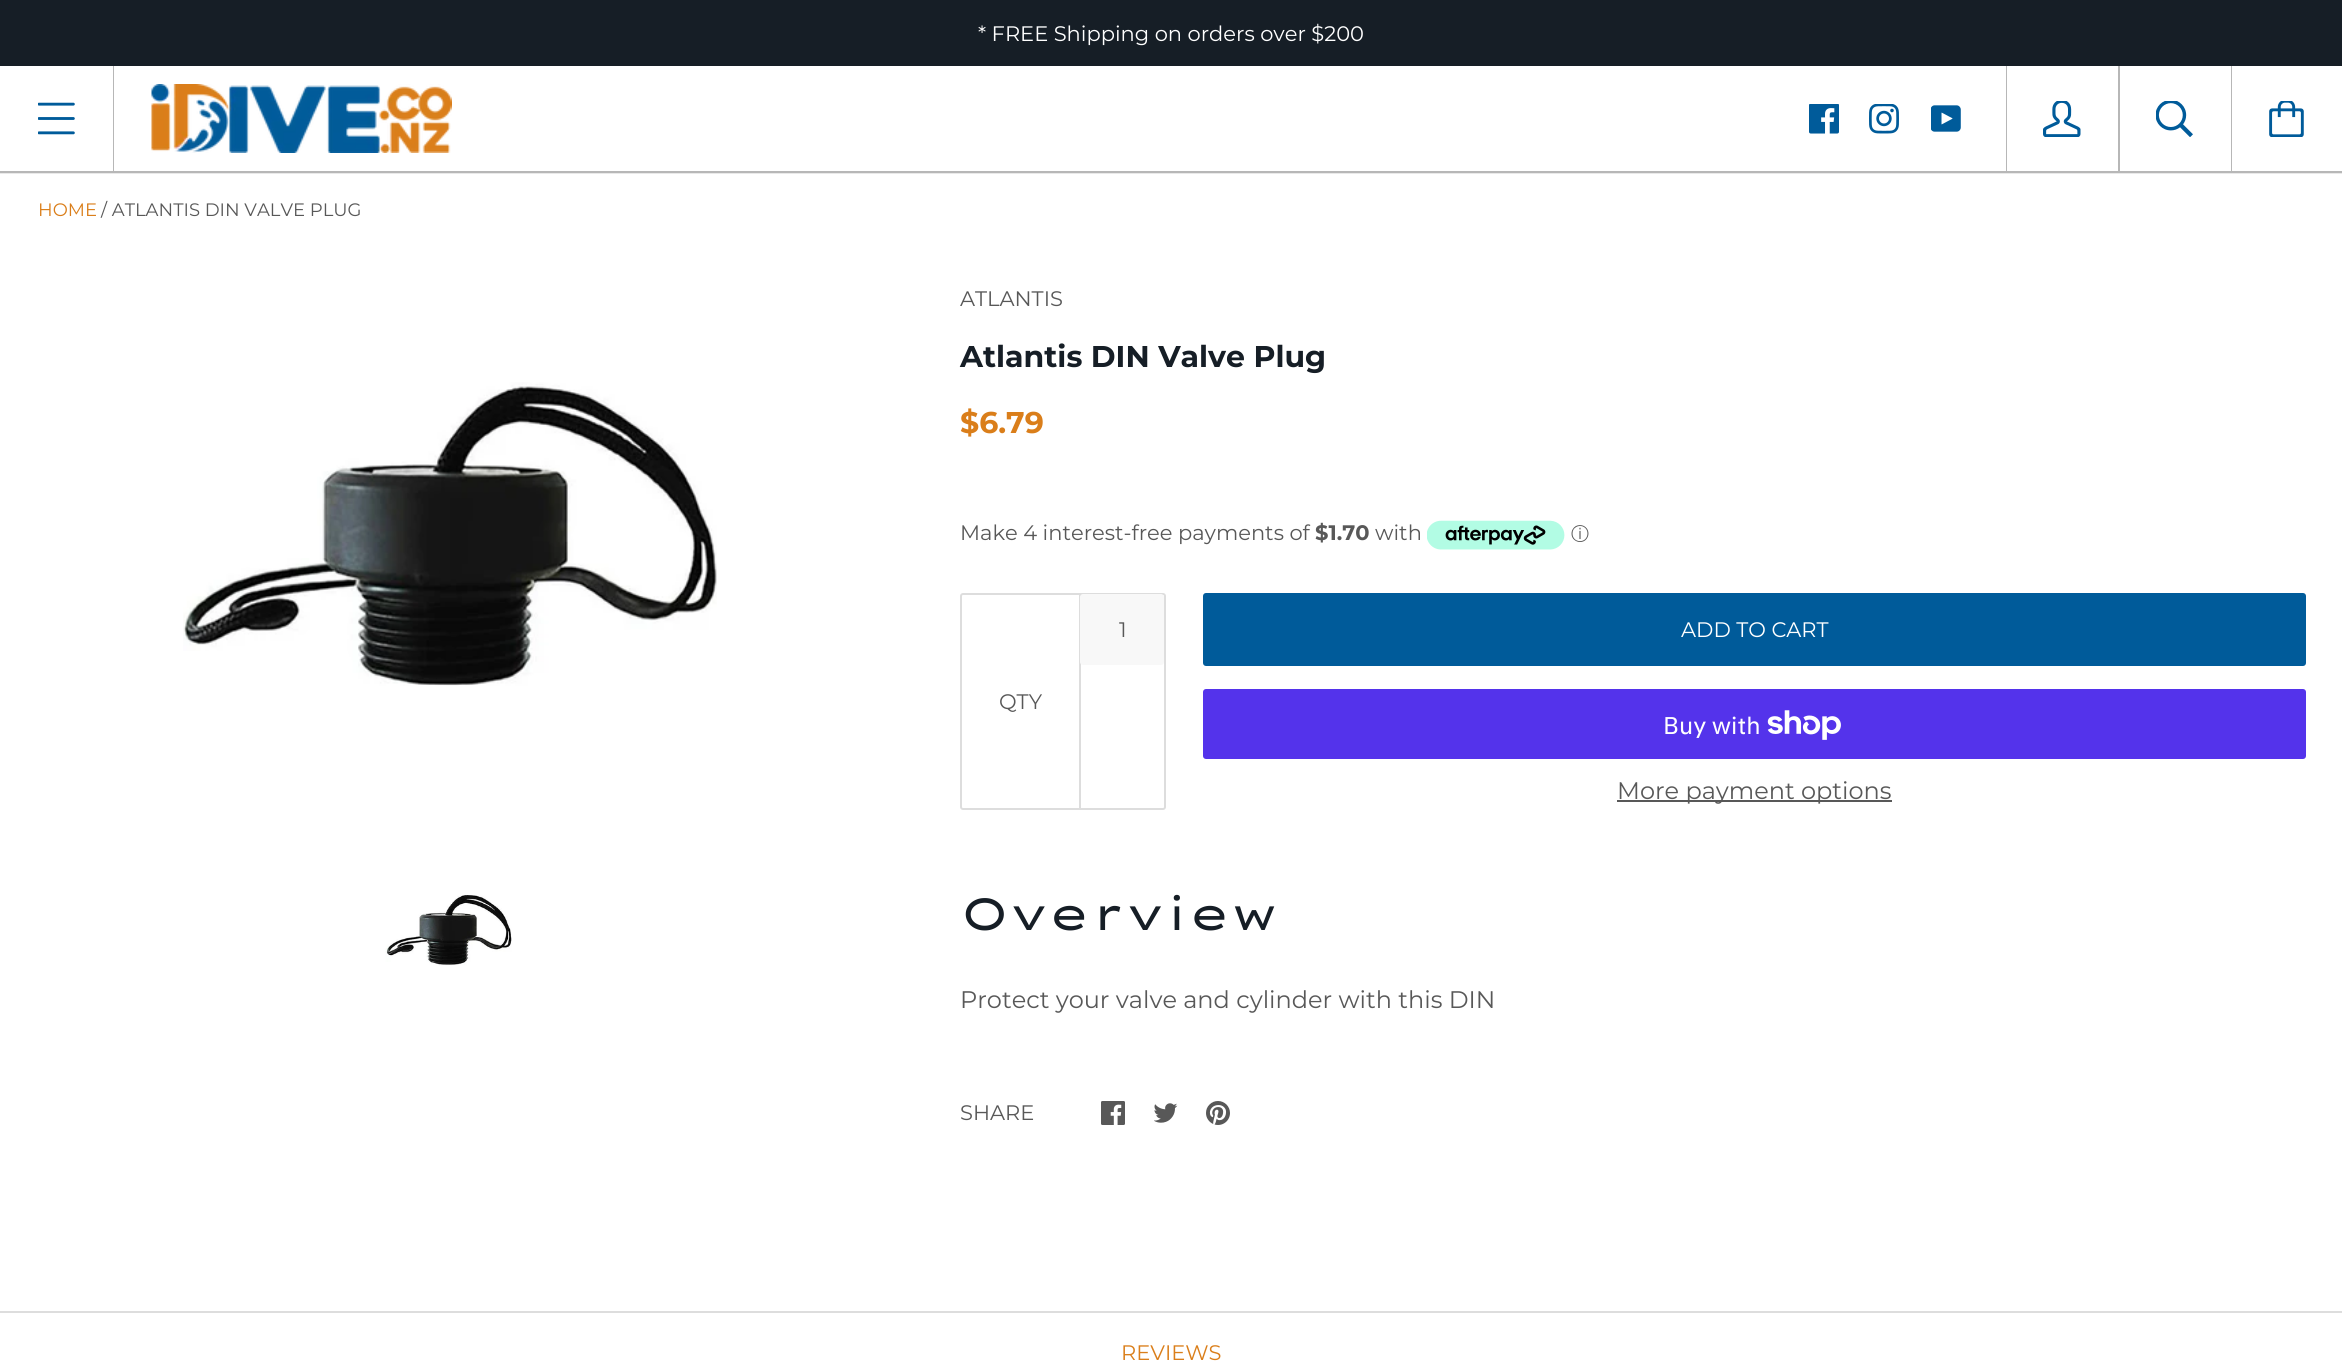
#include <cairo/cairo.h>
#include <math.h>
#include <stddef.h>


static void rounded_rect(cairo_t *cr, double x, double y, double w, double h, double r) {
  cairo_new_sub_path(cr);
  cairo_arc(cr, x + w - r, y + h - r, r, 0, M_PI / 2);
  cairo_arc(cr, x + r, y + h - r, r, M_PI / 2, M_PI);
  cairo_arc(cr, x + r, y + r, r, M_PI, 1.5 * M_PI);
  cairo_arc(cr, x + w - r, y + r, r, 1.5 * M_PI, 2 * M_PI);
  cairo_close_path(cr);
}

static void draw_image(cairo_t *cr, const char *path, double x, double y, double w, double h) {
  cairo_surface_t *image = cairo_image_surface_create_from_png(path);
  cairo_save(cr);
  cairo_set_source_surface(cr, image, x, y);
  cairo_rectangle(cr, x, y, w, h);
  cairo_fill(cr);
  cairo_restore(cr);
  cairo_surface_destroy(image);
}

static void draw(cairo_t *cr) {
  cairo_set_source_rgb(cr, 1, 1, 1);
  cairo_paint(cr);
  cairo_set_source_rgb(cr, 22 / 255.0, 30 / 255.0, 38 / 255.0);
  cairo_rectangle(cr, 0, 0, 2342, 66);
  cairo_fill(cr);
  cairo_set_source_rgb(cr, 233 / 255.0, 233 / 255.0, 233 / 255.0);
  cairo_rectangle(cr, 0, 173, 2342, 1);
  cairo_fill(cr);
  cairo_set_source_rgb(cr, 183 / 255.0, 183 / 255.0, 183 / 255.0);
  cairo_rectangle(cr, 0, 171, 2342, 2);
  cairo_fill(cr);
  draw_image(cr, "images/1.png", 38, 102, 37, 33);
  cairo_rectangle(cr, 113, 66, 1, 105);
  cairo_fill(cr);
  draw_image(cr, "images/2.png", 151, 84, 301, 69);
  draw_image(cr, "images/3.png", 1809, 104, 30, 30);
  draw_image(cr, "images/4.png", 1869, 104, 30, 30);
  draw_image(cr, "images/5.png", 1931, 105, 30, 27);
  cairo_rectangle(cr, 2006, 66, 1, 105);
  cairo_fill(cr);
  draw_image(cr, "images/6.png", 2043, 101, 38, 36);
  cairo_rectangle(cr, 2118, 66, 2, 105);
  cairo_fill(cr);
  draw_image(cr, "images/7.png", 2156, 101, 37, 36);
  cairo_rectangle(cr, 2231, 66, 1, 105);
  cairo_fill(cr);
  draw_image(cr, "images/8.png", 2269, 101, 35, 36);
  draw_image(cr, "images/9.png", 183, 382, 534, 304);
  draw_image(cr, "images/10.png", 385, 895, 127, 71);
  draw_image(cr, "images/11.png", 1427, 520, 138, 30);
  rounded_rect(cr, 961, 594, 204, 215, 2);
  cairo_set_source_rgb(cr, 221 / 255.0, 221 / 255.0, 221 / 255.0);
  cairo_stroke(cr);
  cairo_rectangle(cr, 1079, 594, 2, 215);
  cairo_fill(cr);
  cairo_set_source_rgb(cr, 248 / 255.0, 248 / 255.0, 248 / 255.0);
  rounded_rect(cr, 1080, 594, 84, 71, 3);
  cairo_fill(cr);
  cairo_set_source_rgb(cr, 0, 91 / 255.0, 154 / 255.0);
  rounded_rect(cr, 1203, 593, 1103, 73, 3);
  cairo_fill(cr);
  cairo_set_source_rgb(cr, 84 / 255.0, 51 / 255.0, 235 / 255.0);
  rounded_rect(cr, 1203, 689, 1103, 70, 3);
  cairo_fill(cr);
  draw_image(cr, "images/12.png", 1767, 710, 74, 30);
  cairo_set_source_rgb(cr, 88 / 255.0, 88 / 255.0, 88 / 255.0);
  cairo_rectangle(cr, 1617, 800, 275, 2);
  cairo_fill(cr);
  draw_image(cr, "images/13.png", 1101, 1101, 24, 24);
  draw_image(cr, "images/14.png", 1154, 1103, 24, 20);
  draw_image(cr, "images/15.png", 1206, 1101, 24, 24);
  cairo_set_source_rgb(cr, 221 / 255.0, 221 / 255.0, 221 / 255.0);
  cairo_rectangle(cr, 0, 1311, 2342, 2);
  cairo_fill(cr);
  cairo_select_font_face(cr, "Montserrat", CAIRO_FONT_SLANT_NORMAL, CAIRO_FONT_WEIGHT_NORMAL);
  cairo_set_font_size(cr, 21);
  cairo_set_source_rgb(cr, 1, 1, 1);
  cairo_move_to(cr, 978, 41);
  cairo_show_text(cr, "* FREE Shipping on orders over $200");
  cairo_set_font_size(cr, 18);
  cairo_set_source_rgb(cr, 218 / 255.0, 126 / 255.0, 26 / 255.0);
  cairo_move_to(cr, 38, 216);
  cairo_show_text(cr, "HOME");
  cairo_set_source_rgb(cr, 88 / 255.0, 88 / 255.0, 88 / 255.0);
  cairo_move_to(cr, 101, 216);
  cairo_show_text(cr, "/ ATLANTIS DIN VALVE PLUG");
  cairo_set_font_size(cr, 21);
  cairo_move_to(cr, 960, 306);
  cairo_show_text(cr, "ATLANTIS");
  cairo_select_font_face(cr, "Montserrat", CAIRO_FONT_SLANT_NORMAL, CAIRO_FONT_WEIGHT_BOLD);
  cairo_set_font_size(cr, 30);
  cairo_set_source_rgb(cr, 22 / 255.0, 30 / 255.0, 38 / 255.0);
  cairo_move_to(cr, 960, 367);
  cairo_show_text(cr, "Atlantis DIN Valve Plug");
  cairo_set_source_rgb(cr, 218 / 255.0, 126 / 255.0, 26 / 255.0);
  cairo_move_to(cr, 960, 433);
  cairo_show_text(cr, "$6.79");
  cairo_select_font_face(cr, "Montserrat", CAIRO_FONT_SLANT_NORMAL, CAIRO_FONT_WEIGHT_NORMAL);
  cairo_set_font_size(cr, 21);
  cairo_set_source_rgb(cr, 88 / 255.0, 88 / 255.0, 88 / 255.0);
  cairo_move_to(cr, 960, 540);
  cairo_show_text(cr, "Make 4 interest-free payments of");
  cairo_select_font_face(cr, "Montserrat", CAIRO_FONT_SLANT_NORMAL, CAIRO_FONT_WEIGHT_BOLD);
  cairo_move_to(cr, 1315, 540);
  cairo_show_text(cr, "$1.70");
  cairo_select_font_face(cr, "Montserrat", CAIRO_FONT_SLANT_NORMAL, CAIRO_FONT_WEIGHT_NORMAL);
  cairo_move_to(cr, 1375, 540);
  cairo_show_text(cr, "with");
  cairo_select_font_face(cr, "WenQuanYi Zen Hei Medium", CAIRO_FONT_SLANT_NORMAL, CAIRO_FONT_WEIGHT_NORMAL);
  cairo_set_font_size(cr, 18);
  cairo_move_to(cr, 1571, 540);
  cairo_show_text(cr, "ⓘ");
  cairo_select_font_face(cr, "Montserrat", CAIRO_FONT_SLANT_NORMAL, CAIRO_FONT_WEIGHT_NORMAL);
  cairo_set_font_size(cr, 21);
  cairo_move_to(cr, 1119, 637);
  cairo_show_text(cr, "1");
  cairo_move_to(cr, 999, 709);
  cairo_show_text(cr, "QTY");
  cairo_set_source_rgb(cr, 1, 1, 1);
  cairo_move_to(cr, 1681, 637);
  cairo_show_text(cr, "ADD TO CART");
  cairo_select_font_face(cr, "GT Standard", CAIRO_FONT_SLANT_NORMAL, CAIRO_FONT_WEIGHT_NORMAL);
  cairo_set_font_size(cr, 24);
  cairo_move_to(cr, 1663, 734);
  cairo_show_text(cr, "Buy with");
  cairo_select_font_face(cr, "Montserrat", CAIRO_FONT_SLANT_NORMAL, CAIRO_FONT_WEIGHT_NORMAL);
  cairo_set_source_rgb(cr, 88 / 255.0, 88 / 255.0, 88 / 255.0);
  cairo_move_to(cr, 1617, 799);
  cairo_show_text(cr, "More payment options");
  cairo_select_font_face(cr, "Lexend Zetta", CAIRO_FONT_SLANT_NORMAL, CAIRO_FONT_WEIGHT_NORMAL);
  cairo_set_font_size(cr, 45);
  cairo_set_source_rgb(cr, 22 / 255.0, 30 / 255.0, 38 / 255.0);
  cairo_move_to(cr, 960, 930);
  cairo_show_text(cr, "Overview");
  cairo_select_font_face(cr, "Montserrat", CAIRO_FONT_SLANT_NORMAL, CAIRO_FONT_WEIGHT_NORMAL);
  cairo_set_font_size(cr, 24);
  cairo_set_source_rgb(cr, 88 / 255.0, 88 / 255.0, 88 / 255.0);
  cairo_move_to(cr, 960, 1008);
  cairo_show_text(cr, "Protect your valve and cylinder with this DIN");
  cairo_set_font_size(cr, 21);
  cairo_move_to(cr, 960, 1120);
  cairo_show_text(cr, "SHARE");
  cairo_set_source_rgb(cr, 218 / 255.0, 126 / 255.0, 26 / 255.0);
  cairo_move_to(cr, 1121, 1360);
  cairo_show_text(cr, "REVIEWS");
}

int main(void) {
  cairo_surface_t *surface = cairo_image_surface_create(CAIRO_FORMAT_RGB24, 2342, 1363);
  cairo_t *cr = cairo_create(surface);
  cairo_font_options_t *options = cairo_font_options_create();
  cairo_font_options_set_hint_metrics(options, CAIRO_HINT_METRICS_OFF);
  cairo_font_options_set_hint_style(options, CAIRO_HINT_STYLE_NONE);
  cairo_set_font_options(cr, options);
  cairo_set_miter_limit(cr, 4);
  draw(cr);
  cairo_surface_write_to_png(surface, "out.png");
  cairo_font_options_destroy(options);
  cairo_destroy(cr);
  cairo_surface_destroy(surface);
  return 0;
}
